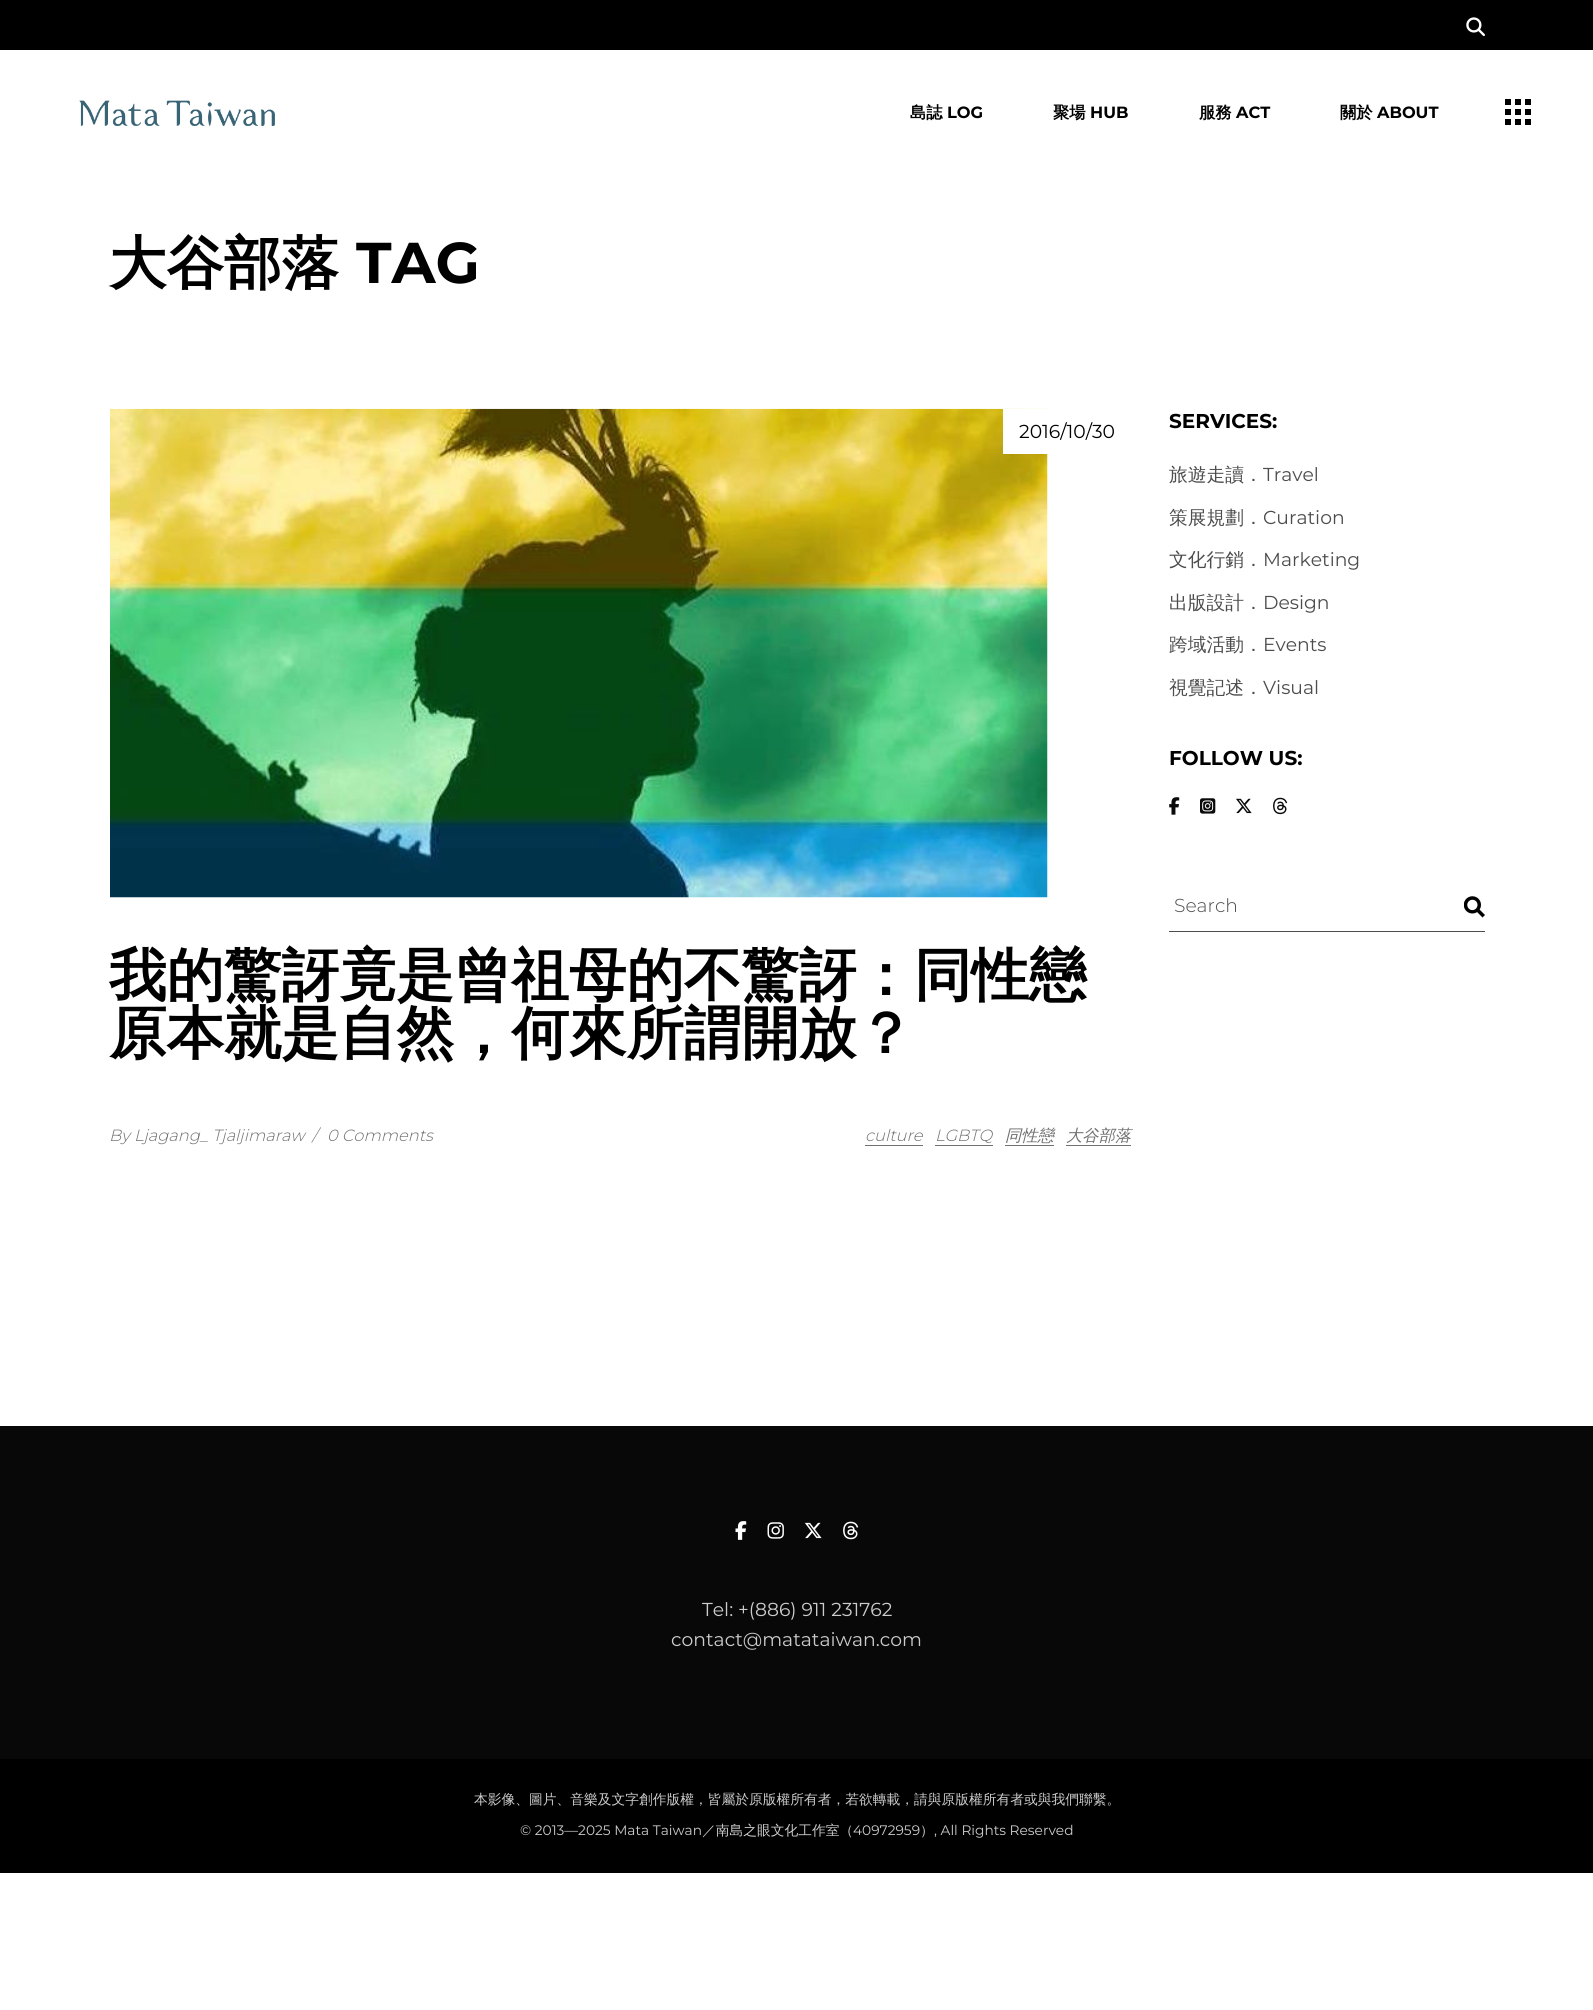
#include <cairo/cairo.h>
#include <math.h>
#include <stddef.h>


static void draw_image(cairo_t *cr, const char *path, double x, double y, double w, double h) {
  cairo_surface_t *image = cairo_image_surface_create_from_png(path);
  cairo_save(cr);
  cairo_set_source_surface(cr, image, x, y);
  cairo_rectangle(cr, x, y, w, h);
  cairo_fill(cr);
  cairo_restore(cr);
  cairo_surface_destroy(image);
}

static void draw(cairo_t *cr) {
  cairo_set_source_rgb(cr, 1, 1, 1);
  cairo_paint(cr);
  cairo_set_source_rgb(cr, 0, 0, 0);
  cairo_rectangle(cr, 0, 0, 1593, 50);
  cairo_fill(cr);
  draw_image(cr, "images/1.png", 1466, 17, 19, 20);
  draw_image(cr, "images/2.png", 79, 100, 196, 26);
  draw_image(cr, "images/3.png", 1505, 99, 26, 26);
  draw_image(cr, "images/4.png", 110, 408, 938, 490);
  cairo_set_source_rgb(cr, 1, 1, 1);
  cairo_rectangle(cr, 1003, 409, 45, 45);
  cairo_fill(cr);
  cairo_set_source_rgb(cr, 112 / 255.0, 112 / 255.0, 112 / 255.0);
  cairo_rectangle(cr, 865, 1145, 58, 1);
  cairo_fill(cr);
  cairo_rectangle(cr, 935, 1145, 58, 1);
  cairo_fill(cr);
  cairo_rectangle(cr, 1005, 1145, 49, 1);
  cairo_fill(cr);
  cairo_rectangle(cr, 1066, 1145, 65, 1);
  cairo_fill(cr);
  draw_image(cr, "images/5.png", 1169, 797, 11, 18);
  draw_image(cr, "images/6.png", 1200, 798, 16, 16);
  draw_image(cr, "images/7.png", 1236, 798, 16, 16);
  draw_image(cr, "images/8.png", 1273, 797, 15, 18);
  cairo_set_source_rgb(cr, 76 / 255.0, 76 / 255.0, 76 / 255.0);
  cairo_rectangle(cr, 1169, 931, 316, 1);
  cairo_fill(cr);
  draw_image(cr, "images/9.png", 1464, 896, 21, 22);
  cairo_set_source_rgb(cr, 8 / 255.0, 8 / 255.0, 8 / 255.0);
  cairo_rectangle(cr, 0, 1426, 1593, 333);
  cairo_fill(cr);
  draw_image(cr, "images/10.png", 735, 1521, 12, 19);
  draw_image(cr, "images/11.png", 767, 1522, 17, 17);
  draw_image(cr, "images/12.png", 804, 1522, 18, 17);
  draw_image(cr, "images/13.png", 843, 1521, 16, 19);
  cairo_set_source_rgb(cr, 0, 0, 0);
  cairo_rectangle(cr, 0, 1759, 1593, 114);
  cairo_fill(cr);
  cairo_select_font_face(cr, "WenQuanYi Zen Hei", CAIRO_FONT_SLANT_NORMAL, CAIRO_FONT_WEIGHT_BOLD);
  cairo_set_font_size(cr, 16.25);
  cairo_move_to(cr, 910, 118);
  cairo_show_text(cr, "島誌");
  cairo_select_font_face(cr, "Montserrat", CAIRO_FONT_SLANT_NORMAL, CAIRO_FONT_WEIGHT_BOLD);
  cairo_move_to(cr, 947, 118);
  cairo_show_text(cr, "LOG");
  cairo_select_font_face(cr, "WenQuanYi Zen Hei", CAIRO_FONT_SLANT_NORMAL, CAIRO_FONT_WEIGHT_BOLD);
  cairo_move_to(cr, 1053, 118);
  cairo_show_text(cr, "聚場");
  cairo_select_font_face(cr, "Montserrat", CAIRO_FONT_SLANT_NORMAL, CAIRO_FONT_WEIGHT_BOLD);
  cairo_move_to(cr, 1090, 118);
  cairo_show_text(cr, "HUB");
  cairo_select_font_face(cr, "WenQuanYi Zen Hei", CAIRO_FONT_SLANT_NORMAL, CAIRO_FONT_WEIGHT_BOLD);
  cairo_move_to(cr, 1199, 118);
  cairo_show_text(cr, "服務");
  cairo_select_font_face(cr, "Montserrat", CAIRO_FONT_SLANT_NORMAL, CAIRO_FONT_WEIGHT_BOLD);
  cairo_move_to(cr, 1236, 118);
  cairo_show_text(cr, "ACT");
  cairo_select_font_face(cr, "WenQuanYi Zen Hei", CAIRO_FONT_SLANT_NORMAL, CAIRO_FONT_WEIGHT_BOLD);
  cairo_move_to(cr, 1340, 118);
  cairo_show_text(cr, "關於");
  cairo_select_font_face(cr, "Montserrat", CAIRO_FONT_SLANT_NORMAL, CAIRO_FONT_WEIGHT_BOLD);
  cairo_move_to(cr, 1377, 118);
  cairo_show_text(cr, "ABOUT");
  cairo_select_font_face(cr, "WenQuanYi Zen Hei", CAIRO_FONT_SLANT_NORMAL, CAIRO_FONT_WEIGHT_BOLD);
  cairo_set_font_size(cr, 57.5);
  cairo_move_to(cr, 109, 283);
  cairo_show_text(cr, "大谷部落");
  cairo_select_font_face(cr, "Montserrat", CAIRO_FONT_SLANT_NORMAL, CAIRO_FONT_WEIGHT_BOLD);
  cairo_move_to(cr, 356, 283);
  cairo_show_text(cr, "TAG");
  cairo_select_font_face(cr, "Montserrat", CAIRO_FONT_SLANT_NORMAL, CAIRO_FONT_WEIGHT_NORMAL);
  cairo_set_font_size(cr, 18.75);
  cairo_move_to(cr, 1019, 438);
  cairo_show_text(cr, "2016/10/30");
  cairo_select_font_face(cr, "WenQuanYi Zen Hei", CAIRO_FONT_SLANT_NORMAL, CAIRO_FONT_WEIGHT_BOLD);
  cairo_set_font_size(cr, 57.5);
  cairo_move_to(cr, 109, 995);
  cairo_show_text(cr, "我的驚訝竟是曾祖母的不驚訝：同性戀");
  cairo_move_to(cr, 109, 1053);
  cairo_show_text(cr, "原本就是自然，何來所謂開放？");
  cairo_select_font_face(cr, "Montserrat Light", CAIRO_FONT_SLANT_ITALIC, CAIRO_FONT_WEIGHT_NORMAL);
  cairo_set_font_size(cr, 16.25);
  cairo_set_source_rgb(cr, 112 / 255.0, 112 / 255.0, 112 / 255.0);
  cairo_move_to(cr, 109, 1141);
  cairo_show_text(cr, "By Ljagang_ Tjaljimaraw");
  cairo_move_to(cr, 312, 1141);
  cairo_show_text(cr, "/");
  cairo_move_to(cr, 327, 1141);
  cairo_show_text(cr, "0 Comments");
  cairo_move_to(cr, 865, 1141);
  cairo_show_text(cr, "culture");
  cairo_move_to(cr, 935, 1141);
  cairo_show_text(cr, "LGBTQ");
  cairo_select_font_face(cr, "WenQuanYi Zen Hei Medium", CAIRO_FONT_SLANT_ITALIC, CAIRO_FONT_WEIGHT_NORMAL);
  cairo_move_to(cr, 1005, 1141);
  cairo_show_text(cr, "同性戀");
  cairo_move_to(cr, 1066, 1141);
  cairo_show_text(cr, "大谷部落");
  cairo_select_font_face(cr, "Montserrat", CAIRO_FONT_SLANT_NORMAL, CAIRO_FONT_WEIGHT_BOLD);
  cairo_set_font_size(cr, 20);
  cairo_set_source_rgb(cr, 0, 0, 0);
  cairo_move_to(cr, 1169, 428);
  cairo_show_text(cr, "SERVICES:");
  cairo_select_font_face(cr, "WenQuanYi Zen Hei Medium", CAIRO_FONT_SLANT_NORMAL, CAIRO_FONT_WEIGHT_NORMAL);
  cairo_set_font_size(cr, 18.75);
  cairo_set_source_rgb(cr, 76 / 255.0, 76 / 255.0, 76 / 255.0);
  cairo_move_to(cr, 1169, 481);
  cairo_show_text(cr, "旅遊走讀．");
  cairo_select_font_face(cr, "Montserrat", CAIRO_FONT_SLANT_NORMAL, CAIRO_FONT_WEIGHT_NORMAL);
  cairo_move_to(cr, 1263, 481);
  cairo_show_text(cr, "Travel");
  cairo_select_font_face(cr, "WenQuanYi Zen Hei Medium", CAIRO_FONT_SLANT_NORMAL, CAIRO_FONT_WEIGHT_NORMAL);
  cairo_move_to(cr, 1169, 524);
  cairo_show_text(cr, "策展規劃．");
  cairo_select_font_face(cr, "Montserrat", CAIRO_FONT_SLANT_NORMAL, CAIRO_FONT_WEIGHT_NORMAL);
  cairo_move_to(cr, 1263, 524);
  cairo_show_text(cr, "Curation");
  cairo_select_font_face(cr, "WenQuanYi Zen Hei Medium", CAIRO_FONT_SLANT_NORMAL, CAIRO_FONT_WEIGHT_NORMAL);
  cairo_move_to(cr, 1169, 566);
  cairo_show_text(cr, "文化行銷．");
  cairo_select_font_face(cr, "Montserrat", CAIRO_FONT_SLANT_NORMAL, CAIRO_FONT_WEIGHT_NORMAL);
  cairo_move_to(cr, 1263, 566);
  cairo_show_text(cr, "Marketing");
  cairo_select_font_face(cr, "WenQuanYi Zen Hei Medium", CAIRO_FONT_SLANT_NORMAL, CAIRO_FONT_WEIGHT_NORMAL);
  cairo_move_to(cr, 1169, 609);
  cairo_show_text(cr, "出版設計．");
  cairo_select_font_face(cr, "Montserrat", CAIRO_FONT_SLANT_NORMAL, CAIRO_FONT_WEIGHT_NORMAL);
  cairo_move_to(cr, 1263, 609);
  cairo_show_text(cr, "Design");
  cairo_select_font_face(cr, "WenQuanYi Zen Hei Medium", CAIRO_FONT_SLANT_NORMAL, CAIRO_FONT_WEIGHT_NORMAL);
  cairo_move_to(cr, 1169, 651);
  cairo_show_text(cr, "跨域活動．");
  cairo_select_font_face(cr, "Montserrat", CAIRO_FONT_SLANT_NORMAL, CAIRO_FONT_WEIGHT_NORMAL);
  cairo_move_to(cr, 1263, 651);
  cairo_show_text(cr, "Events");
  cairo_select_font_face(cr, "WenQuanYi Zen Hei Medium", CAIRO_FONT_SLANT_NORMAL, CAIRO_FONT_WEIGHT_NORMAL);
  cairo_move_to(cr, 1169, 694);
  cairo_show_text(cr, "視覺記述．");
  cairo_select_font_face(cr, "Montserrat", CAIRO_FONT_SLANT_NORMAL, CAIRO_FONT_WEIGHT_NORMAL);
  cairo_move_to(cr, 1263, 694);
  cairo_show_text(cr, "Visual");
  cairo_select_font_face(cr, "Montserrat", CAIRO_FONT_SLANT_NORMAL, CAIRO_FONT_WEIGHT_BOLD);
  cairo_set_font_size(cr, 20);
  cairo_set_source_rgb(cr, 0, 0, 0);
  cairo_move_to(cr, 1169, 765);
  cairo_show_text(cr, "FOLLOW US:");
  cairo_select_font_face(cr, "Montserrat Light", CAIRO_FONT_SLANT_NORMAL, CAIRO_FONT_WEIGHT_NORMAL);
  cairo_set_font_size(cr, 18.75);
  cairo_set_source_rgb(cr, 76 / 255.0, 76 / 255.0, 76 / 255.0);
  cairo_move_to(cr, 1174, 912);
  cairo_show_text(cr, "Search");
  cairo_select_font_face(cr, "Montserrat", CAIRO_FONT_SLANT_NORMAL, CAIRO_FONT_WEIGHT_NORMAL);
  cairo_set_source_rgb(cr, 204 / 255.0, 204 / 255.0, 204 / 255.0);
  cairo_move_to(cr, 702, 1616);
  cairo_show_text(cr, "Tel: +(886) 911 231762");
  cairo_move_to(cr, 671, 1646);
  cairo_show_text(cr, "contact@matataiwan.com");
  cairo_select_font_face(cr, "WenQuanYi Zen Hei Medium", CAIRO_FONT_SLANT_NORMAL, CAIRO_FONT_WEIGHT_NORMAL);
  cairo_set_font_size(cr, 13.75);
  cairo_move_to(cr, 474, 1804);
  cairo_show_text(cr, "本影像、圖片、音樂及文字創作版權，皆屬於原版權所有者，若欲轉載，請與原版權所有者或與我們聯繫。");
  cairo_select_font_face(cr, "Montserrat", CAIRO_FONT_SLANT_NORMAL, CAIRO_FONT_WEIGHT_NORMAL);
  cairo_move_to(cr, 520, 1835);
  cairo_show_text(cr, "© 2013—2025 Mata Taiwan");
  cairo_select_font_face(cr, "WenQuanYi Zen Hei Medium", CAIRO_FONT_SLANT_NORMAL, CAIRO_FONT_WEIGHT_NORMAL);
  cairo_move_to(cr, 702, 1835);
  cairo_show_text(cr, "／南島之眼文化工作室（");
  cairo_select_font_face(cr, "Montserrat", CAIRO_FONT_SLANT_NORMAL, CAIRO_FONT_WEIGHT_NORMAL);
  cairo_move_to(cr, 853, 1835);
  cairo_show_text(cr, "40972959");
  cairo_select_font_face(cr, "WenQuanYi Zen Hei Medium", CAIRO_FONT_SLANT_NORMAL, CAIRO_FONT_WEIGHT_NORMAL);
  cairo_move_to(cr, 920, 1835);
  cairo_show_text(cr, "）");
  cairo_select_font_face(cr, "Montserrat", CAIRO_FONT_SLANT_NORMAL, CAIRO_FONT_WEIGHT_NORMAL);
  cairo_move_to(cr, 934, 1835);
  cairo_show_text(cr, ", All Rights Reserved");
}

int main(void) {
  cairo_surface_t *surface = cairo_image_surface_create(CAIRO_FORMAT_RGB24, 1593, 2010);
  cairo_t *cr = cairo_create(surface);
  cairo_font_options_t *options = cairo_font_options_create();
  cairo_font_options_set_hint_metrics(options, CAIRO_HINT_METRICS_OFF);
  cairo_font_options_set_hint_style(options, CAIRO_HINT_STYLE_NONE);
  cairo_set_font_options(cr, options);
  cairo_set_miter_limit(cr, 4);
  draw(cr);
  cairo_surface_write_to_png(surface, "out.png");
  cairo_font_options_destroy(options);
  cairo_destroy(cr);
  cairo_surface_destroy(surface);
  return 0;
}
